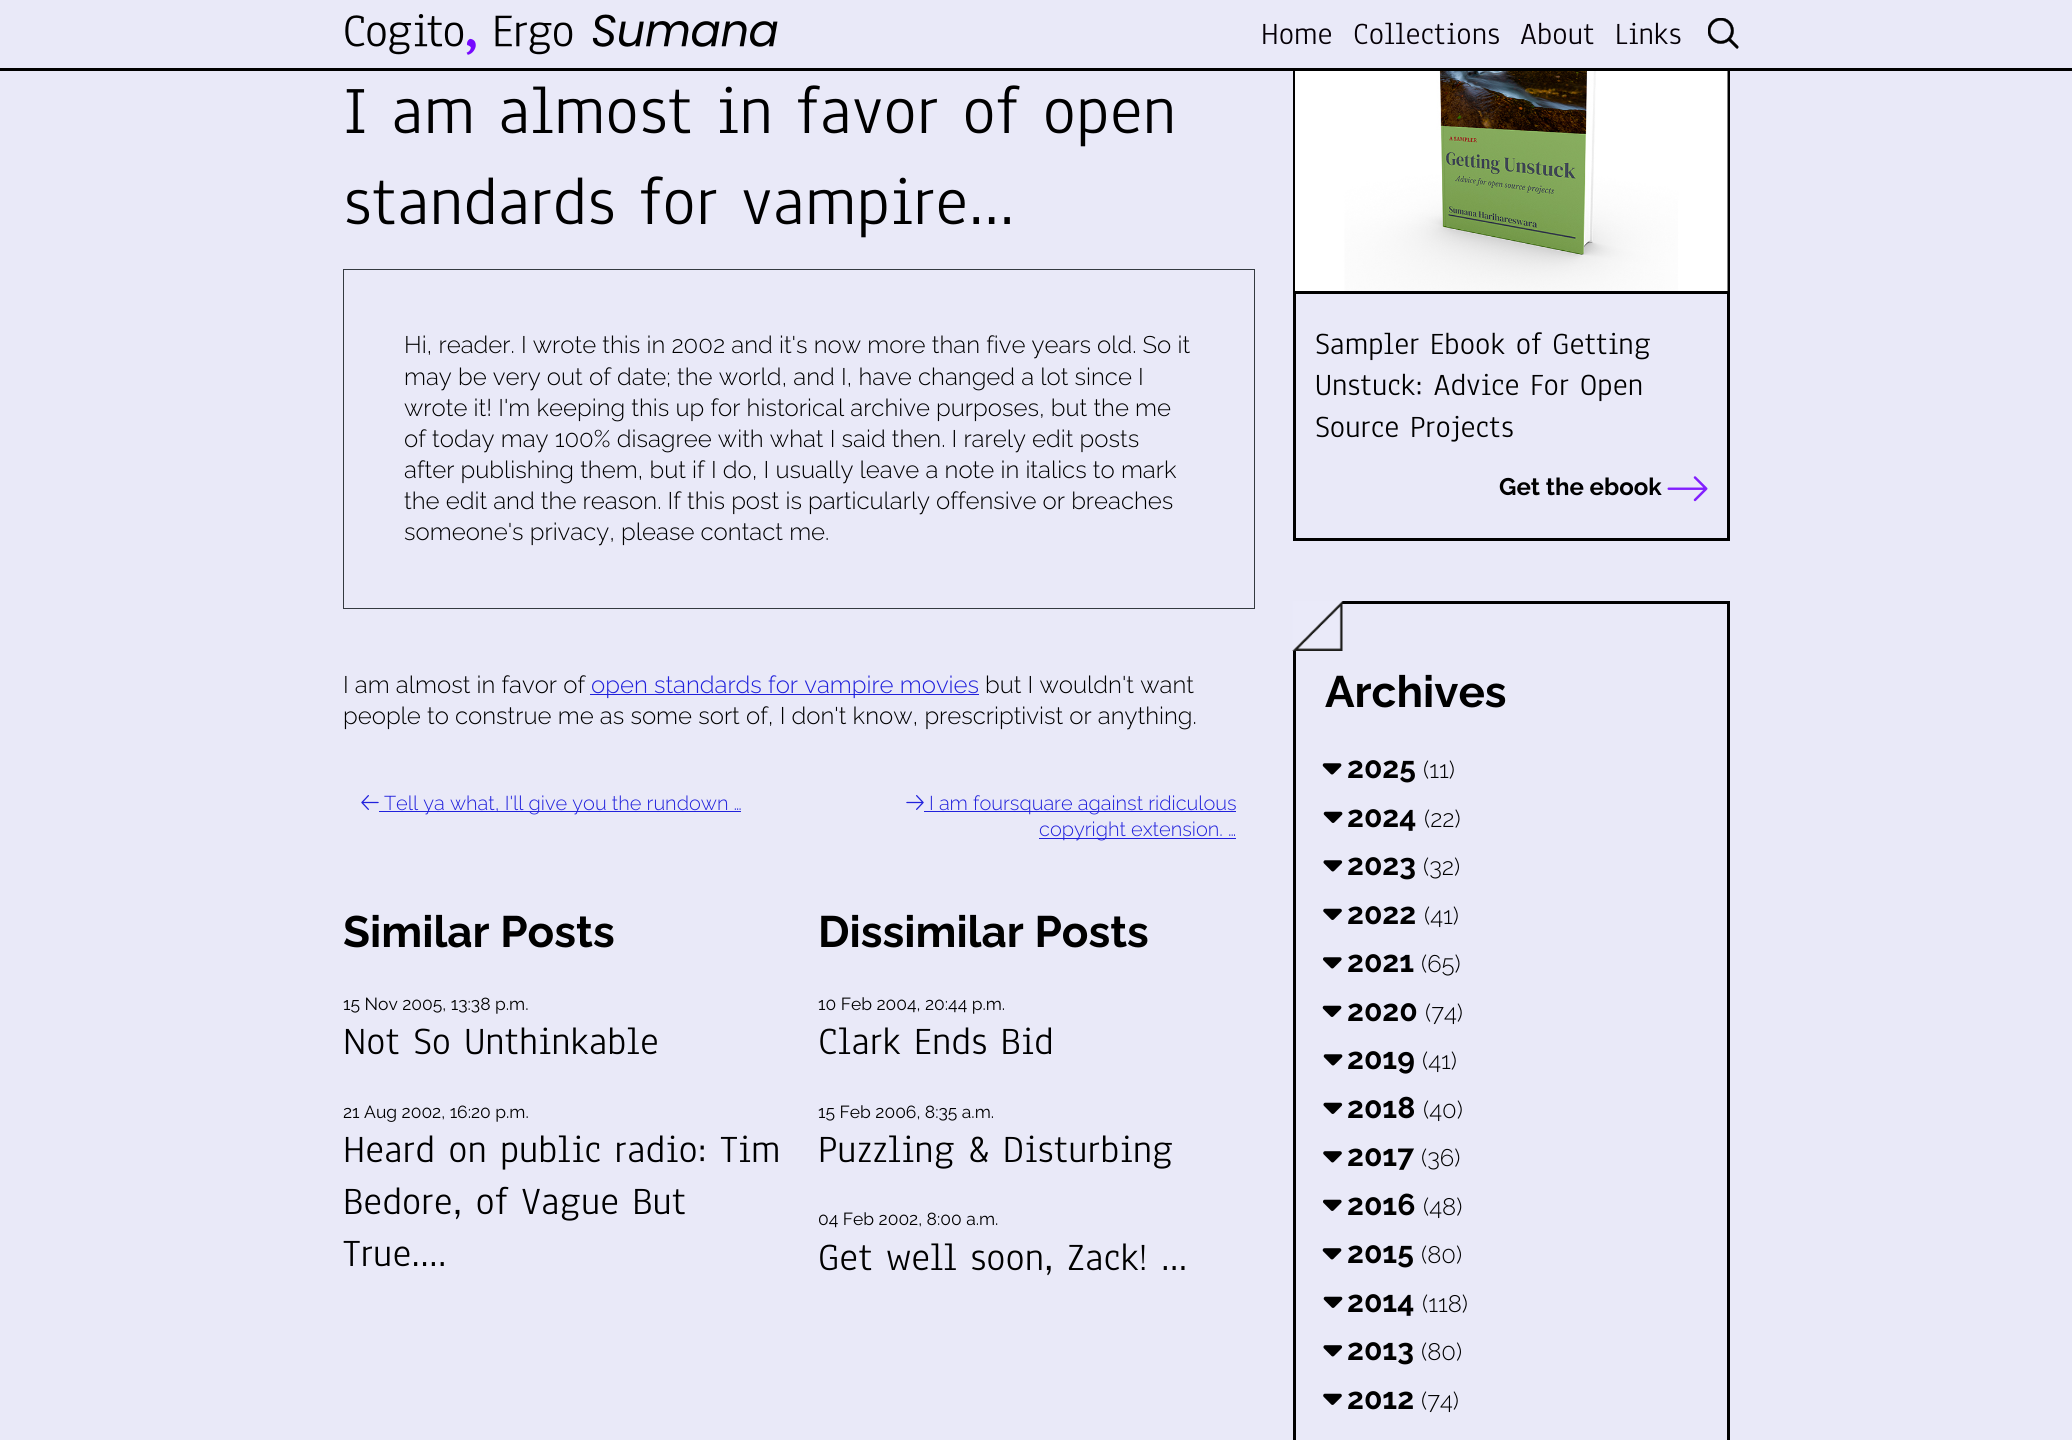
#include <cairo/cairo.h>
#include <math.h>
#include <stddef.h>


static void draw_image(cairo_t *cr, const char *path, double x, double y, double w, double h) {
  cairo_surface_t *image = cairo_image_surface_create_from_png(path);
  cairo_save(cr);
  cairo_set_source_surface(cr, image, x, y);
  cairo_rectangle(cr, x, y, w, h);
  cairo_fill(cr);
  cairo_restore(cr);
  cairo_surface_destroy(image);
}

static void draw(cairo_t *cr) {
  cairo_set_source_rgb(cr, 233 / 255.0, 233 / 255.0, 248 / 255.0);
  cairo_paint(cr);
  cairo_rectangle(cr, 1294.5, -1.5, 434, 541);
  cairo_set_source_rgb(cr, 0, 0, 0);
  cairo_set_line_width(cr, 3);
  cairo_stroke(cr);
  cairo_set_source_rgb(cr, 233 / 255.0, 233 / 255.0, 248 / 255.0);
  cairo_rectangle(cr, 1293, 0, 437, 68);
  cairo_fill(cr);
  cairo_set_source_rgb(cr, 0, 0, 0);
  cairo_rectangle(cr, 0, 68, 2072, 3);
  cairo_fill(cr);
  draw_image(cr, "images/1.png", 345, 14, 433, 41);
  draw_image(cr, "images/2.png", 1708, 18, 31, 31);
  cairo_rectangle(cr, 343.5, 269.5, 911, 339);
  cairo_set_source_rgb(cr, 52 / 255.0, 58 / 255.0, 64 / 255.0);
  cairo_set_line_width(cr, 1);
  cairo_stroke(cr);
  cairo_set_source_rgb(cr, 33 / 255.0, 33 / 255.0, 220 / 255.0);
  cairo_rectangle(cr, 590, 694, 389, 1);
  cairo_fill(cr);
  draw_image(cr, "images/3.png", 361, 795, 18, 15);
  cairo_rectangle(cr, 379, 811, 362, 1);
  cairo_fill(cr);
  draw_image(cr, "images/4.png", 906, 795, 18, 15);
  cairo_rectangle(cr, 924, 811, 312, 1);
  cairo_fill(cr);
  cairo_rectangle(cr, 1039, 838, 197, 1);
  cairo_fill(cr);
  draw_image(cr, "images/5.png", 1295, 71, 433, 220);
  cairo_set_source_rgb(cr, 0, 0, 0);
  cairo_rectangle(cr, 1295, 291, 433, 3);
  cairo_fill(cr);
  draw_image(cr, "images/6.png", 1667, 476, 41, 26);
  cairo_rectangle(cr, 1294.5, 602.5, 434, 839);
  cairo_set_line_width(cr, 3);
  cairo_stroke(cr);
  draw_image(cr, "images/7.png", 1292, 601, 51, 50);
  draw_image(cr, "images/8.png", 1322, 763, 20, 12);
  draw_image(cr, "images/9.png", 1323, 811, 20, 12);
  draw_image(cr, "images/10.png", 1323, 860, 20, 12);
  draw_image(cr, "images/11.png", 1323, 908, 19, 12);
  draw_image(cr, "images/12.png", 1323, 957, 19, 12);
  draw_image(cr, "images/13.png", 1322, 1005, 20, 12);
  draw_image(cr, "images/14.png", 1323, 1054, 20, 12);
  draw_image(cr, "images/15.png", 1323, 1102, 20, 12);
  draw_image(cr, "images/16.png", 1323, 1151, 19, 12);
  draw_image(cr, "images/17.png", 1323, 1199, 19, 12);
  draw_image(cr, "images/18.png", 1322, 1248, 20, 12);
  draw_image(cr, "images/19.png", 1323, 1296, 20, 12);
  draw_image(cr, "images/20.png", 1323, 1345, 20, 12);
  draw_image(cr, "images/21.png", 1323, 1393, 19, 12);
  cairo_select_font_face(cr, "Anaheim", CAIRO_FONT_SLANT_NORMAL, CAIRO_FONT_WEIGHT_NORMAL);
  cairo_set_font_size(cr, 32);
  cairo_set_source_rgb(cr, 5 / 255.0, 0, 6 / 255.0);
  cairo_move_to(cr, 1261, 44);
  cairo_show_text(cr, "Home");
  cairo_move_to(cr, 1353, 44);
  cairo_show_text(cr, "Collections");
  cairo_move_to(cr, 1520, 44);
  cairo_show_text(cr, "About");
  cairo_move_to(cr, 1615, 44);
  cairo_show_text(cr, "Links");
  cairo_set_font_size(cr, 70);
  cairo_set_source_rgb(cr, 0, 0, 0);
  cairo_move_to(cr, 343, 133);
  cairo_show_text(cr, "I am almost in favor of open");
  cairo_move_to(cr, 343, 224);
  cairo_show_text(cr, "standards for vampire…");
  cairo_select_font_face(cr, "Raleway Light", CAIRO_FONT_SLANT_NORMAL, CAIRO_FONT_WEIGHT_NORMAL);
  cairo_set_font_size(cr, 24);
  cairo_move_to(cr, 404, 353);
  cairo_show_text(cr, "Hi, reader. I wrote this in 2002 and it's now more than five years");
  cairo_move_to(cr, 1097, 353);
  cairo_show_text(cr, "old. So it");
  cairo_move_to(cr, 404, 385);
  cairo_show_text(cr, "may be very out of date; the world, and I, have changed a lot since I");
  cairo_move_to(cr, 404, 416);
  cairo_show_text(cr, "wrote it! I'm keeping this up for historical archive purposes, but the me");
  cairo_move_to(cr, 404, 447);
  cairo_show_text(cr, "of today may 100% disagree with what I said then. I rarely edit posts");
  cairo_move_to(cr, 404, 478);
  cairo_show_text(cr, "after publishing them, but if I do, I usually leave a note in italics to mark");
  cairo_move_to(cr, 404, 509);
  cairo_show_text(cr, "the edit and the reason. If this post is particularly");
  cairo_move_to(cr, 936, 509);
  cairo_show_text(cr, "offensive or breaches");
  cairo_move_to(cr, 404, 540);
  cairo_show_text(cr, "someone's privacy, please contact me.");
  cairo_move_to(cr, 343, 693);
  cairo_show_text(cr, "I am almost in favor of");
  cairo_set_source_rgb(cr, 33 / 255.0, 33 / 255.0, 220 / 255.0);
  cairo_move_to(cr, 591, 693);
  cairo_show_text(cr, "open standards for vampire movies");
  cairo_set_source_rgb(cr, 0, 0, 0);
  cairo_move_to(cr, 985, 693);
  cairo_show_text(cr, "but I wouldn't want");
  cairo_move_to(cr, 343, 724);
  cairo_show_text(cr, "people to construe me as some sort of, I don't know, prescriptivist or anything.");
  cairo_set_font_size(cr, 20);
  cairo_set_source_rgb(cr, 33 / 255.0, 33 / 255.0, 220 / 255.0);
  cairo_move_to(cr, 384, 810);
  cairo_show_text(cr, "Tell ya what, I'll give you the rundown …");
  cairo_move_to(cr, 929, 810);
  cairo_show_text(cr, "I am foursquare against ridiculous");
  cairo_move_to(cr, 1039, 836);
  cairo_show_text(cr, "copyright extension. …");
  cairo_select_font_face(cr, "Raleway", CAIRO_FONT_SLANT_NORMAL, CAIRO_FONT_WEIGHT_BOLD);
  cairo_set_font_size(cr, 44);
  cairo_set_source_rgb(cr, 0, 0, 0);
  cairo_move_to(cr, 343, 947);
  cairo_show_text(cr, "Similar Posts");
  cairo_select_font_face(cr, "Raleway", CAIRO_FONT_SLANT_NORMAL, CAIRO_FONT_WEIGHT_NORMAL);
  cairo_set_font_size(cr, 17.5);
  cairo_move_to(cr, 343, 1010);
  cairo_show_text(cr, "15 Nov 2005, 13:38 p.m.");
  cairo_select_font_face(cr, "Anaheim", CAIRO_FONT_SLANT_NORMAL, CAIRO_FONT_WEIGHT_NORMAL);
  cairo_set_font_size(cr, 40);
  cairo_move_to(cr, 343, 1054);
  cairo_show_text(cr, "Not So Unthinkable");
  cairo_select_font_face(cr, "Raleway", CAIRO_FONT_SLANT_NORMAL, CAIRO_FONT_WEIGHT_NORMAL);
  cairo_set_font_size(cr, 17.5);
  cairo_move_to(cr, 343, 1118);
  cairo_show_text(cr, "21 Aug 2002, 16:20 p.m.");
  cairo_select_font_face(cr, "Anaheim", CAIRO_FONT_SLANT_NORMAL, CAIRO_FONT_WEIGHT_NORMAL);
  cairo_set_font_size(cr, 40);
  cairo_move_to(cr, 343, 1162);
  cairo_show_text(cr, "Heard on public radio: Tim");
  cairo_move_to(cr, 343, 1214);
  cairo_show_text(cr, "Bedore, of Vague But");
  cairo_move_to(cr, 343, 1266);
  cairo_show_text(cr, "True.…");
  cairo_select_font_face(cr, "Raleway", CAIRO_FONT_SLANT_NORMAL, CAIRO_FONT_WEIGHT_BOLD);
  cairo_set_font_size(cr, 44);
  cairo_move_to(cr, 818, 947);
  cairo_show_text(cr, "Dissimilar Posts");
  cairo_select_font_face(cr, "Raleway", CAIRO_FONT_SLANT_NORMAL, CAIRO_FONT_WEIGHT_NORMAL);
  cairo_set_font_size(cr, 17.5);
  cairo_move_to(cr, 818, 1010);
  cairo_show_text(cr, "10 Feb 2004, 20:44 p.m.");
  cairo_select_font_face(cr, "Anaheim", CAIRO_FONT_SLANT_NORMAL, CAIRO_FONT_WEIGHT_NORMAL);
  cairo_set_font_size(cr, 40);
  cairo_move_to(cr, 818, 1054);
  cairo_show_text(cr, "Clark Ends Bid");
  cairo_select_font_face(cr, "Raleway", CAIRO_FONT_SLANT_NORMAL, CAIRO_FONT_WEIGHT_NORMAL);
  cairo_set_font_size(cr, 17.5);
  cairo_move_to(cr, 818, 1118);
  cairo_show_text(cr, "15 Feb 2006, 8:35 a.m.");
  cairo_select_font_face(cr, "Anaheim", CAIRO_FONT_SLANT_NORMAL, CAIRO_FONT_WEIGHT_NORMAL);
  cairo_set_font_size(cr, 40);
  cairo_move_to(cr, 818, 1162);
  cairo_show_text(cr, "Puzzling & Disturbing");
  cairo_select_font_face(cr, "Raleway", CAIRO_FONT_SLANT_NORMAL, CAIRO_FONT_WEIGHT_NORMAL);
  cairo_set_font_size(cr, 17.5);
  cairo_move_to(cr, 818, 1225);
  cairo_show_text(cr, "04 Feb 2002, 8:00 a.m.");
  cairo_select_font_face(cr, "Anaheim", CAIRO_FONT_SLANT_NORMAL, CAIRO_FONT_WEIGHT_NORMAL);
  cairo_set_font_size(cr, 40);
  cairo_move_to(cr, 818, 1270);
  cairo_show_text(cr, "Get well soon, Zack! …");
  cairo_set_font_size(cr, 32);
  cairo_move_to(cr, 1315, 354);
  cairo_show_text(cr, "Sampler Ebook of Getting");
  cairo_move_to(cr, 1315, 395);
  cairo_show_text(cr, "Unstuck: Advice For Open");
  cairo_move_to(cr, 1315, 437);
  cairo_show_text(cr, "Source Projects");
  cairo_select_font_face(cr, "Raleway", CAIRO_FONT_SLANT_NORMAL, CAIRO_FONT_WEIGHT_BOLD);
  cairo_set_font_size(cr, 24);
  cairo_move_to(cr, 1499, 495);
  cairo_show_text(cr, "Get the ebook");
  cairo_set_font_size(cr, 44);
  cairo_move_to(cr, 1325, 707);
  cairo_show_text(cr, "Archives");
  cairo_set_font_size(cr, 30);
  cairo_move_to(cr, 1347, 778);
  cairo_show_text(cr, "2025");
  cairo_select_font_face(cr, "Raleway Light", CAIRO_FONT_SLANT_NORMAL, CAIRO_FONT_WEIGHT_NORMAL);
  cairo_set_font_size(cr, 24);
  cairo_move_to(cr, 1423, 778);
  cairo_show_text(cr, "(11)");
  cairo_select_font_face(cr, "Raleway", CAIRO_FONT_SLANT_NORMAL, CAIRO_FONT_WEIGHT_BOLD);
  cairo_set_font_size(cr, 30);
  cairo_move_to(cr, 1347, 827);
  cairo_show_text(cr, "2024");
  cairo_select_font_face(cr, "Raleway Light", CAIRO_FONT_SLANT_NORMAL, CAIRO_FONT_WEIGHT_NORMAL);
  cairo_set_font_size(cr, 24);
  cairo_move_to(cr, 1424, 827);
  cairo_show_text(cr, "(22)");
  cairo_select_font_face(cr, "Raleway", CAIRO_FONT_SLANT_NORMAL, CAIRO_FONT_WEIGHT_BOLD);
  cairo_set_font_size(cr, 30);
  cairo_move_to(cr, 1347, 875);
  cairo_show_text(cr, "2023");
  cairo_select_font_face(cr, "Raleway Light", CAIRO_FONT_SLANT_NORMAL, CAIRO_FONT_WEIGHT_NORMAL);
  cairo_set_font_size(cr, 24);
  cairo_move_to(cr, 1423, 875);
  cairo_show_text(cr, "(32)");
  cairo_select_font_face(cr, "Raleway", CAIRO_FONT_SLANT_NORMAL, CAIRO_FONT_WEIGHT_BOLD);
  cairo_set_font_size(cr, 30);
  cairo_move_to(cr, 1347, 924);
  cairo_show_text(cr, "2022");
  cairo_select_font_face(cr, "Raleway Light", CAIRO_FONT_SLANT_NORMAL, CAIRO_FONT_WEIGHT_NORMAL);
  cairo_set_font_size(cr, 24);
  cairo_move_to(cr, 1424, 924);
  cairo_show_text(cr, "(41)");
  cairo_select_font_face(cr, "Raleway", CAIRO_FONT_SLANT_NORMAL, CAIRO_FONT_WEIGHT_BOLD);
  cairo_set_font_size(cr, 30);
  cairo_move_to(cr, 1347, 972);
  cairo_show_text(cr, "2021");
  cairo_select_font_face(cr, "Raleway Light", CAIRO_FONT_SLANT_NORMAL, CAIRO_FONT_WEIGHT_NORMAL);
  cairo_set_font_size(cr, 24);
  cairo_move_to(cr, 1421, 972);
  cairo_show_text(cr, "(65)");
  cairo_select_font_face(cr, "Raleway", CAIRO_FONT_SLANT_NORMAL, CAIRO_FONT_WEIGHT_BOLD);
  cairo_set_font_size(cr, 30);
  cairo_move_to(cr, 1347, 1021);
  cairo_show_text(cr, "2020");
  cairo_select_font_face(cr, "Raleway Light", CAIRO_FONT_SLANT_NORMAL, CAIRO_FONT_WEIGHT_NORMAL);
  cairo_set_font_size(cr, 24);
  cairo_move_to(cr, 1425, 1021);
  cairo_show_text(cr, "(74)");
  cairo_select_font_face(cr, "Raleway", CAIRO_FONT_SLANT_NORMAL, CAIRO_FONT_WEIGHT_BOLD);
  cairo_set_font_size(cr, 30);
  cairo_move_to(cr, 1347, 1069);
  cairo_show_text(cr, "2019");
  cairo_select_font_face(cr, "Raleway Light", CAIRO_FONT_SLANT_NORMAL, CAIRO_FONT_WEIGHT_NORMAL);
  cairo_set_font_size(cr, 24);
  cairo_move_to(cr, 1422, 1069);
  cairo_show_text(cr, "(41)");
  cairo_select_font_face(cr, "Raleway", CAIRO_FONT_SLANT_NORMAL, CAIRO_FONT_WEIGHT_BOLD);
  cairo_set_font_size(cr, 30);
  cairo_move_to(cr, 1347, 1118);
  cairo_show_text(cr, "2018");
  cairo_select_font_face(cr, "Raleway Light", CAIRO_FONT_SLANT_NORMAL, CAIRO_FONT_WEIGHT_NORMAL);
  cairo_set_font_size(cr, 24);
  cairo_move_to(cr, 1423, 1118);
  cairo_show_text(cr, "(40)");
  cairo_select_font_face(cr, "Raleway", CAIRO_FONT_SLANT_NORMAL, CAIRO_FONT_WEIGHT_BOLD);
  cairo_set_font_size(cr, 30);
  cairo_move_to(cr, 1347, 1166);
  cairo_show_text(cr, "2017");
  cairo_select_font_face(cr, "Raleway Light", CAIRO_FONT_SLANT_NORMAL, CAIRO_FONT_WEIGHT_NORMAL);
  cairo_set_font_size(cr, 24);
  cairo_move_to(cr, 1421, 1166);
  cairo_show_text(cr, "(36)");
  cairo_select_font_face(cr, "Raleway", CAIRO_FONT_SLANT_NORMAL, CAIRO_FONT_WEIGHT_BOLD);
  cairo_set_font_size(cr, 30);
  cairo_move_to(cr, 1347, 1215);
  cairo_show_text(cr, "2016");
  cairo_select_font_face(cr, "Raleway Light", CAIRO_FONT_SLANT_NORMAL, CAIRO_FONT_WEIGHT_NORMAL);
  cairo_set_font_size(cr, 24);
  cairo_move_to(cr, 1423, 1215);
  cairo_show_text(cr, "(48)");
  cairo_select_font_face(cr, "Raleway", CAIRO_FONT_SLANT_NORMAL, CAIRO_FONT_WEIGHT_BOLD);
  cairo_set_font_size(cr, 30);
  cairo_move_to(cr, 1347, 1263);
  cairo_show_text(cr, "2015");
  cairo_select_font_face(cr, "Raleway Light", CAIRO_FONT_SLANT_NORMAL, CAIRO_FONT_WEIGHT_NORMAL);
  cairo_set_font_size(cr, 24);
  cairo_move_to(cr, 1421, 1263);
  cairo_show_text(cr, "(80)");
  cairo_select_font_face(cr, "Raleway", CAIRO_FONT_SLANT_NORMAL, CAIRO_FONT_WEIGHT_BOLD);
  cairo_set_font_size(cr, 30);
  cairo_move_to(cr, 1347, 1312);
  cairo_show_text(cr, "2014");
  cairo_select_font_face(cr, "Raleway Light", CAIRO_FONT_SLANT_NORMAL, CAIRO_FONT_WEIGHT_NORMAL);
  cairo_set_font_size(cr, 24);
  cairo_move_to(cr, 1422, 1312);
  cairo_show_text(cr, "(118)");
  cairo_select_font_face(cr, "Raleway", CAIRO_FONT_SLANT_NORMAL, CAIRO_FONT_WEIGHT_BOLD);
  cairo_set_font_size(cr, 30);
  cairo_move_to(cr, 1347, 1360);
  cairo_show_text(cr, "2013");
  cairo_select_font_face(cr, "Raleway Light", CAIRO_FONT_SLANT_NORMAL, CAIRO_FONT_WEIGHT_NORMAL);
  cairo_set_font_size(cr, 24);
  cairo_move_to(cr, 1421, 1360);
  cairo_show_text(cr, "(80)");
  cairo_select_font_face(cr, "Raleway", CAIRO_FONT_SLANT_NORMAL, CAIRO_FONT_WEIGHT_BOLD);
  cairo_set_font_size(cr, 30);
  cairo_move_to(cr, 1347, 1409);
  cairo_show_text(cr, "2012");
  cairo_select_font_face(cr, "Raleway Light", CAIRO_FONT_SLANT_NORMAL, CAIRO_FONT_WEIGHT_NORMAL);
  cairo_set_font_size(cr, 24);
  cairo_move_to(cr, 1421, 1409);
  cairo_show_text(cr, "(74)");
}

int main(void) {
  cairo_surface_t *surface = cairo_image_surface_create(CAIRO_FORMAT_RGB24, 2072, 1440);
  cairo_t *cr = cairo_create(surface);
  cairo_font_options_t *options = cairo_font_options_create();
  cairo_font_options_set_hint_metrics(options, CAIRO_HINT_METRICS_OFF);
  cairo_font_options_set_hint_style(options, CAIRO_HINT_STYLE_NONE);
  cairo_set_font_options(cr, options);
  cairo_set_miter_limit(cr, 4);
  draw(cr);
  cairo_surface_write_to_png(surface, "out.png");
  cairo_font_options_destroy(options);
  cairo_destroy(cr);
  cairo_surface_destroy(surface);
  return 0;
}
